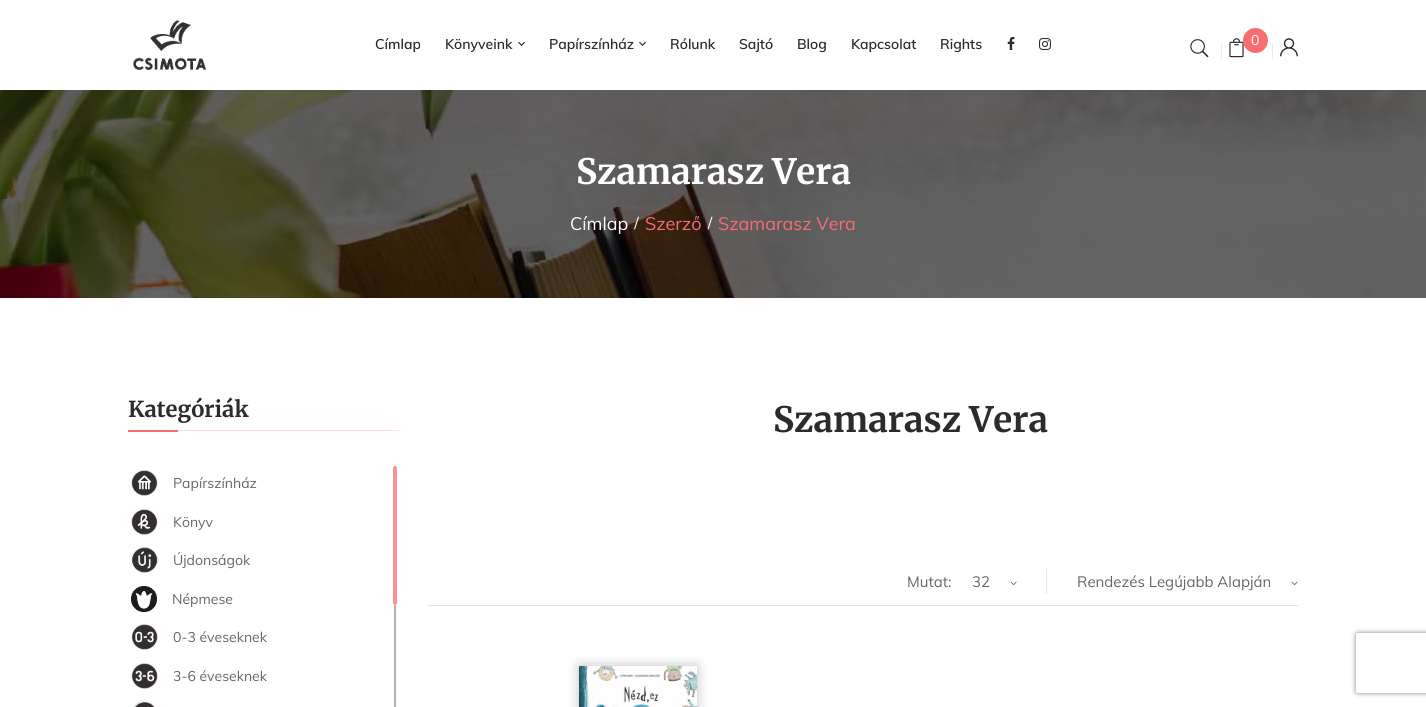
#include <cairo/cairo.h>
#include <math.h>
#include <stddef.h>


static void rounded_rect(cairo_t *cr, double x, double y, double w, double h, double r) {
  cairo_new_sub_path(cr);
  cairo_arc(cr, x + w - r, y + h - r, r, 0, M_PI / 2);
  cairo_arc(cr, x + r, y + h - r, r, M_PI / 2, M_PI);
  cairo_arc(cr, x + r, y + r, r, M_PI, 1.5 * M_PI);
  cairo_arc(cr, x + w - r, y + r, r, 1.5 * M_PI, 2 * M_PI);
  cairo_close_path(cr);
}

static void draw_shadow(cairo_t *cr, double x, double y, double w, double h, double r, double blur, double alpha) {
  cairo_push_group_with_content(cr, CAIRO_CONTENT_ALPHA);
  cairo_set_operator(cr, CAIRO_OPERATOR_SOURCE);
  for (int i = 15; i >= -15 && fmin(w, h) + blur * i / 3 > 0; i -= 2) {
    double e = blur * i / 6;
    cairo_set_source_rgba(cr, 0, 0, 0, alpha * erfc((i - 1) / 8.5) / 2);
    rounded_rect(cr, x - e, y - e, w + 2 * e, h + 2 * e, fmax(0, fmin(r + e + blur * .6, fmin(w, h) / 2 + e)));
    cairo_fill(cr);
  }
  cairo_pattern_t *soft = cairo_pop_group(cr);
  cairo_mask(cr, soft);
  cairo_pattern_destroy(soft);
}

static void draw_image(cairo_t *cr, const char *path, double x, double y, double w, double h) {
  cairo_surface_t *image = cairo_image_surface_create_from_png(path);
  cairo_save(cr);
  cairo_set_source_surface(cr, image, x, y);
  cairo_rectangle(cr, x, y, w, h);
  cairo_fill(cr);
  cairo_restore(cr);
  cairo_surface_destroy(image);
}

static void draw(cairo_t *cr) {
  cairo_set_source_rgb(cr, 1, 1, 1);
  cairo_paint(cr);
  draw_image(cr, "images/1.png", 133, 20, 73, 50);
  draw_image(cr, "images/2.png", 518, 41, 7, 5);
  draw_image(cr, "images/2.png", 639, 41, 7, 5);
  draw_image(cr, "images/3.png", 1007, 37, 8, 13);
  draw_image(cr, "images/4.png", 1039, 38, 12, 12);
  draw_image(cr, "images/5.png", 1190, 39, 19, 19);
  draw_image(cr, "images/6.png", 1229, 38, 15, 20);
  cairo_set_source_rgb(cr, 248 / 255.0, 109 / 255.0, 114 / 255.0);
  cairo_arc(cr, 1255.5, 40.5, 12.5, 0, 2 * M_PI);
  cairo_fill(cr);
  cairo_set_source_rgb(cr, 234 / 255.0, 234 / 255.0, 234 / 255.0);
  cairo_rectangle(cr, 1221, 43, 1, 16);
  cairo_fill(cr);
  cairo_rectangle(cr, 1272, 43, 1, 16);
  cairo_fill(cr);
  draw_image(cr, "images/7.png", 1280, 38, 18, 19);
  draw_image(cr, "images/8.png", 0, 90, 1426, 208);
  cairo_set_source_rgb(cr, 1, 1, 1);
  cairo_new_path(cr);
  cairo_move_to(cr, 638, 216.5);
  cairo_line_to(cr, 639, 217);
  cairo_line_to(cr, 635, 229.5);
  cairo_line_to(cr, 634, 229);
  cairo_close_path(cr);
  cairo_fill(cr);
  cairo_new_path(cr);
  cairo_move_to(cr, 711.5, 216.5);
  cairo_line_to(cr, 712.5, 217);
  cairo_line_to(cr, 708.5, 229.5);
  cairo_line_to(cr, 707.5, 229);
  cairo_close_path(cr);
  cairo_fill(cr);
  cairo_set_source_rgb(cr, 253 / 255.0, 219 / 255.0, 220 / 255.0);
  cairo_rectangle(cr, 178, 430, 220, 1);
  cairo_fill(cr);
  cairo_set_source_rgb(cr, 248 / 255.0, 109 / 255.0, 114 / 255.0);
  cairo_rectangle(cr, 128, 430, 50, 2);
  cairo_fill(cr);
  draw_image(cr, "images/9.png", 131, 470, 27, 26);
  draw_image(cr, "images/10.png", 131, 509, 27, 26);
  draw_image(cr, "images/11.png", 131, 547, 27, 26);
  draw_image(cr, "images/12.png", 131, 586, 26, 26);
  draw_image(cr, "images/13.png", 131, 624, 27, 26);
  draw_image(cr, "images/14.png", 131, 663, 27, 26);
  draw_image(cr, "images/15.png", 133, 701, 22, 6);
  cairo_set_source_rgb(cr, 250 / 255.0, 146 / 255.0, 149 / 255.0);
  rounded_rect(cr, 393, 466, 4, 139, 2);
  cairo_fill(cr);
  cairo_set_source_rgb(cr, 179 / 255.0, 179 / 255.0, 179 / 255.0);
  rounded_rect(cr, 394, 605, 2, 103, 1);
  cairo_fill(cr);
  cairo_set_source_rgb(cr, 227 / 255.0, 227 / 255.0, 227 / 255.0);
  cairo_rectangle(cr, 428, 605, 870, 1);
  cairo_fill(cr);
  draw_image(cr, "images/16.png", 1010, 581, 7, 5);
  cairo_rectangle(cr, 1046, 570, 1, 24);
  cairo_fill(cr);
  draw_image(cr, "images/16.png", 1291, 581, 7, 5);
  cairo_set_source_rgb(cr, 43 / 255.0, 43 / 255.0, 43 / 255.0);
  draw_shadow(cr, 579, 666, 118, 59, 0, 6, 0.3);
  draw_image(cr, "images/17.png", 579, 666, 118, 41);
  cairo_save(cr);
  cairo_set_fill_rule(cr, CAIRO_FILL_RULE_EVEN_ODD);
  cairo_new_path(cr);
  cairo_move_to(cr, 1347, 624);
  cairo_line_to(cr, 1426, 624);
  cairo_line_to(cr, 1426, 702);
  cairo_line_to(cr, 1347, 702);
  cairo_close_path(cr);
  cairo_move_to(cr, 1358, 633);
  cairo_line_to(cr, 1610, 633);
  cairo_curve_to(cr, 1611, 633, 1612, 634, 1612, 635);
  cairo_line_to(cr, 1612, 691);
  cairo_curve_to(cr, 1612, 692, 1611, 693, 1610, 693);
  cairo_line_to(cr, 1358, 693);
  cairo_curve_to(cr, 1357, 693, 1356, 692, 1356, 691);
  cairo_line_to(cr, 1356, 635);
  cairo_curve_to(cr, 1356, 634, 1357, 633, 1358, 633);
  cairo_close_path(cr);
  cairo_clip(cr);
  cairo_set_source_rgb(cr, 128 / 255.0, 128 / 255.0, 128 / 255.0);
  draw_shadow(cr, 1356, 633, 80, 60, 2, 2.5, 1);
  cairo_restore(cr);
  cairo_select_font_face(cr, "Muli SemiBold", CAIRO_FONT_SLANT_NORMAL, CAIRO_FONT_WEIGHT_NORMAL);
  cairo_set_font_size(cr, 14);
  cairo_set_source_rgb(cr, 43 / 255.0, 43 / 255.0, 43 / 255.0);
  cairo_move_to(cr, 375, 49);
  cairo_show_text(cr, "Címlap");
  cairo_move_to(cr, 445, 49);
  cairo_show_text(cr, "Könyveink");
  cairo_move_to(cr, 549, 49);
  cairo_show_text(cr, "Papírszínház");
  cairo_move_to(cr, 670, 49);
  cairo_show_text(cr, "Rólunk");
  cairo_move_to(cr, 739, 49);
  cairo_show_text(cr, "Sajtó");
  cairo_move_to(cr, 797, 49);
  cairo_show_text(cr, "Blog");
  cairo_move_to(cr, 851, 49);
  cairo_show_text(cr, "Kapcsolat");
  cairo_move_to(cr, 940, 49);
  cairo_show_text(cr, "Rights");
  cairo_select_font_face(cr, "Muli", CAIRO_FONT_SLANT_NORMAL, CAIRO_FONT_WEIGHT_NORMAL);
  cairo_set_source_rgb(cr, 1, 1, 1);
  cairo_move_to(cr, 1251, 45);
  cairo_show_text(cr, "0");
  cairo_select_font_face(cr, "Merriweather", CAIRO_FONT_SLANT_NORMAL, CAIRO_FONT_WEIGHT_BOLD);
  cairo_set_font_size(cr, 35);
  cairo_move_to(cr, 576, 184);
  cairo_show_text(cr, "Szamarasz Vera");
  cairo_select_font_face(cr, "Muli", CAIRO_FONT_SLANT_NORMAL, CAIRO_FONT_WEIGHT_NORMAL);
  cairo_set_font_size(cr, 18);
  cairo_move_to(cr, 570, 230);
  cairo_show_text(cr, "Címlap");
  cairo_set_source_rgb(cr, 248 / 255.0, 109 / 255.0, 114 / 255.0);
  cairo_move_to(cr, 645, 230);
  cairo_show_text(cr, "Szerző");
  cairo_move_to(cr, 718, 230);
  cairo_show_text(cr, "Szamarasz Vera");
  cairo_select_font_face(cr, "Merriweather", CAIRO_FONT_SLANT_NORMAL, CAIRO_FONT_WEIGHT_BOLD);
  cairo_set_font_size(cr, 22);
  cairo_set_source_rgb(cr, 43 / 255.0, 43 / 255.0, 43 / 255.0);
  cairo_move_to(cr, 128, 417);
  cairo_show_text(cr, "Kategóriák");
  cairo_select_font_face(cr, "Muli", CAIRO_FONT_SLANT_NORMAL, CAIRO_FONT_WEIGHT_NORMAL);
  cairo_set_font_size(cr, 14);
  cairo_set_source_rgb(cr, 102 / 255.0, 102 / 255.0, 102 / 255.0);
  cairo_move_to(cr, 173, 488);
  cairo_show_text(cr, "Papírszínház");
  cairo_move_to(cr, 173, 527);
  cairo_show_text(cr, "Könyv");
  cairo_move_to(cr, 173, 565);
  cairo_show_text(cr, "Újdonságok");
  cairo_move_to(cr, 172, 604);
  cairo_show_text(cr, "Népmese");
  cairo_move_to(cr, 173, 642);
  cairo_show_text(cr, "0-3 éveseknek");
  cairo_move_to(cr, 173, 681);
  cairo_show_text(cr, "3-6 éveseknek");
  cairo_select_font_face(cr, "Merriweather", CAIRO_FONT_SLANT_NORMAL, CAIRO_FONT_WEIGHT_BOLD);
  cairo_set_font_size(cr, 35);
  cairo_set_source_rgb(cr, 43 / 255.0, 43 / 255.0, 43 / 255.0);
  cairo_move_to(cr, 773, 432);
  cairo_show_text(cr, "Szamarasz Vera");
  cairo_select_font_face(cr, "Muli", CAIRO_FONT_SLANT_NORMAL, CAIRO_FONT_WEIGHT_NORMAL);
  cairo_set_font_size(cr, 15);
  cairo_set_source_rgb(cr, 102 / 255.0, 102 / 255.0, 102 / 255.0);
  cairo_move_to(cr, 907, 587);
  cairo_show_text(cr, "Mutat:");
  cairo_move_to(cr, 972, 587);
  cairo_show_text(cr, "32");
  cairo_move_to(cr, 1077, 587);
  cairo_show_text(cr, "Rendezés Legújabb Alapján");
}

int main(void) {
  cairo_surface_t *surface = cairo_image_surface_create(CAIRO_FORMAT_RGB24, 1426, 707);
  cairo_t *cr = cairo_create(surface);
  cairo_font_options_t *options = cairo_font_options_create();
  cairo_font_options_set_hint_metrics(options, CAIRO_HINT_METRICS_OFF);
  cairo_font_options_set_hint_style(options, CAIRO_HINT_STYLE_NONE);
  cairo_set_font_options(cr, options);
  cairo_set_miter_limit(cr, 4);
  draw(cr);
  cairo_surface_write_to_png(surface, "out.png");
  cairo_font_options_destroy(options);
  cairo_destroy(cr);
  cairo_surface_destroy(surface);
  return 0;
}
